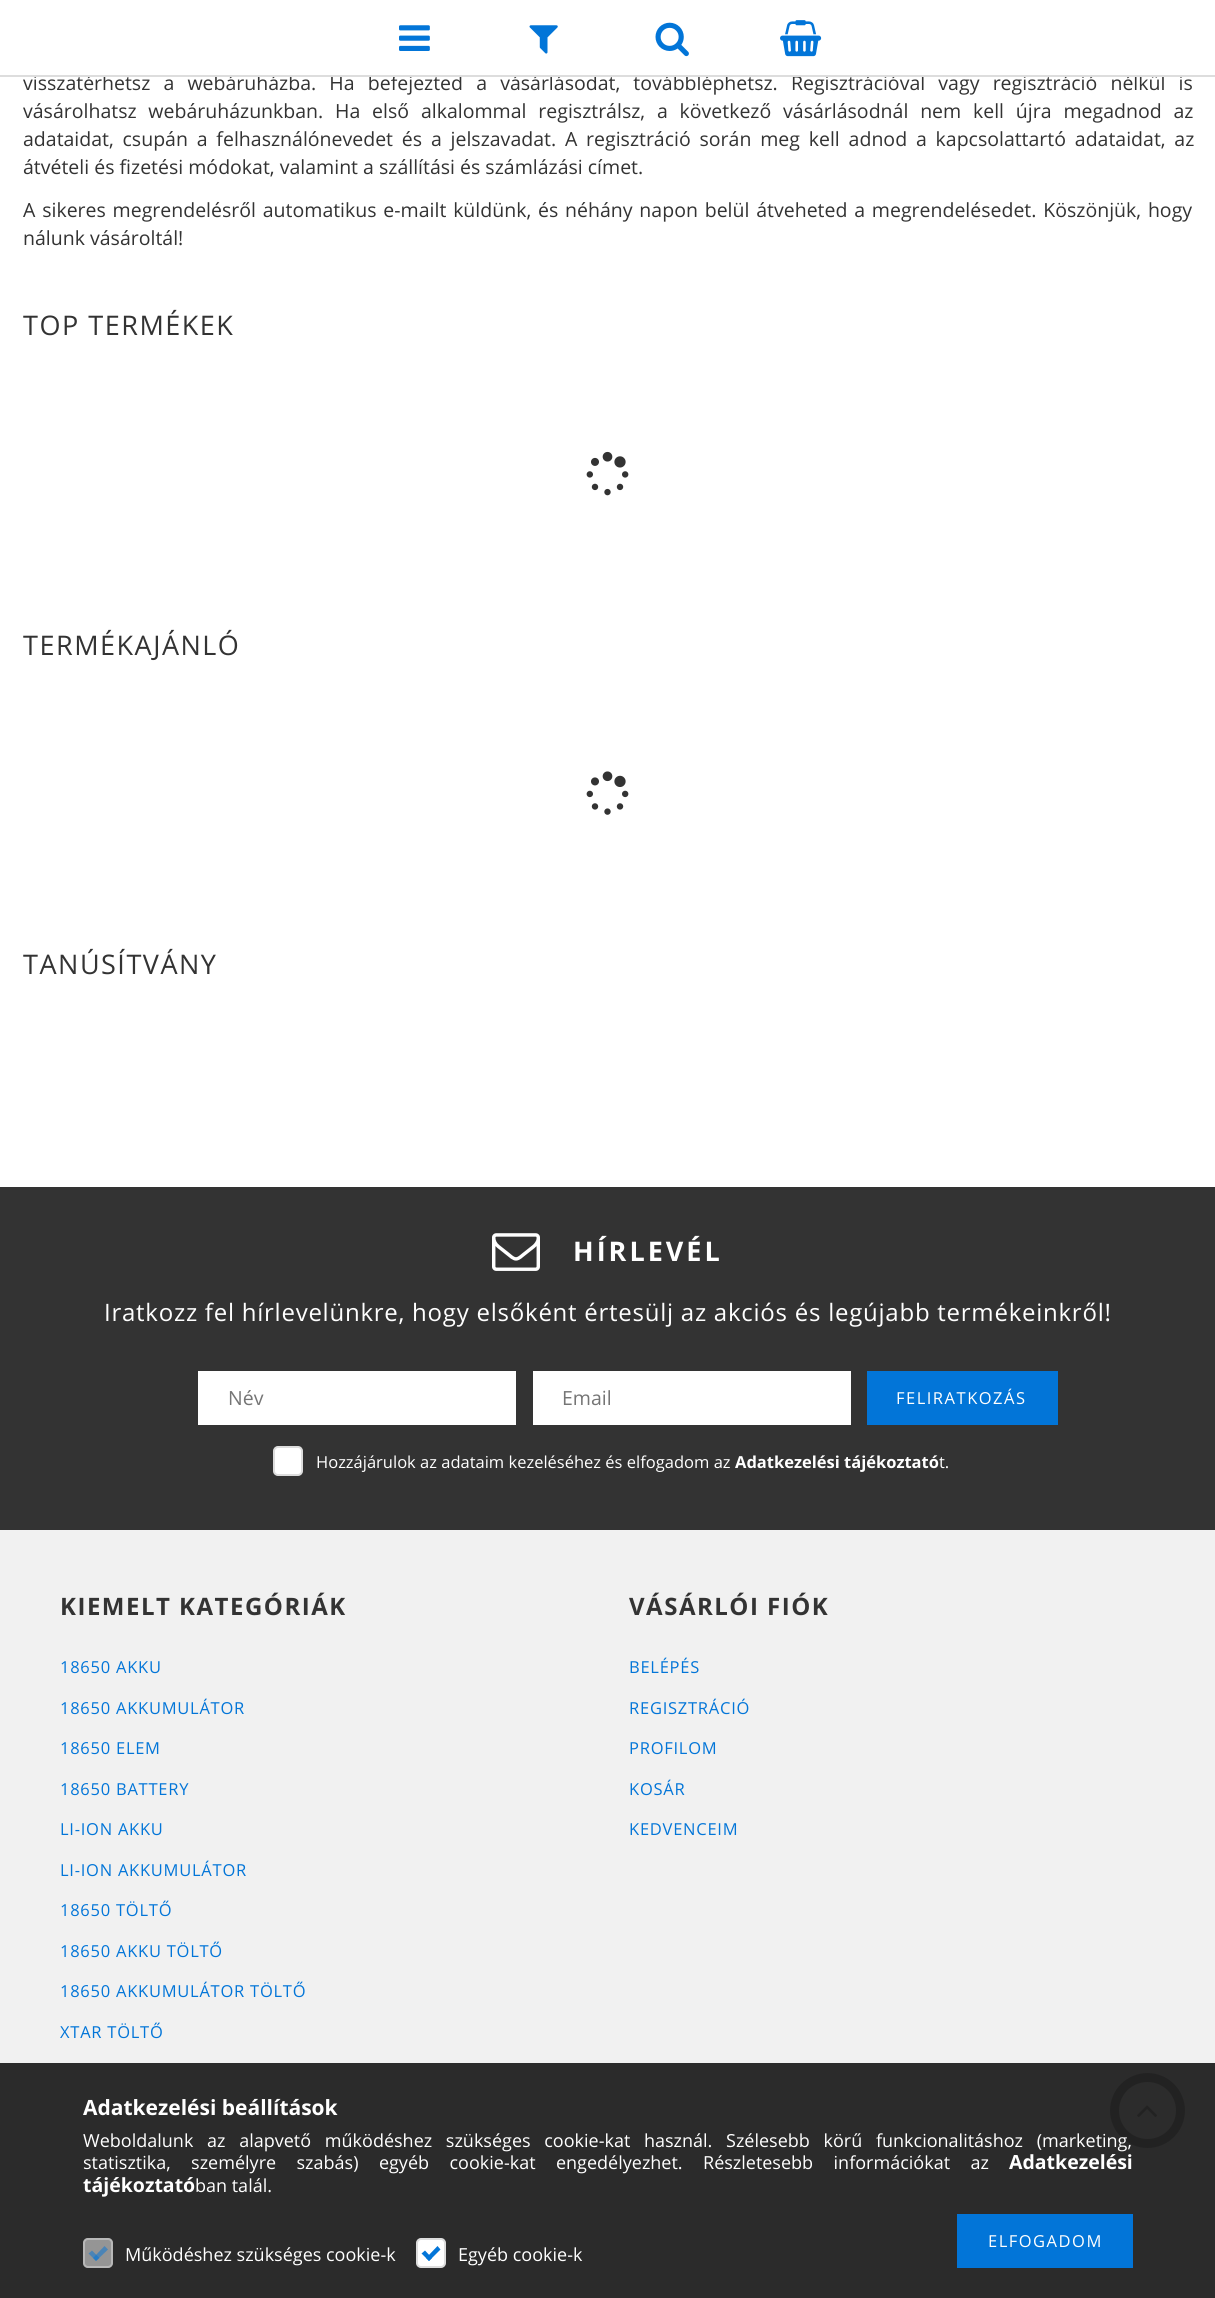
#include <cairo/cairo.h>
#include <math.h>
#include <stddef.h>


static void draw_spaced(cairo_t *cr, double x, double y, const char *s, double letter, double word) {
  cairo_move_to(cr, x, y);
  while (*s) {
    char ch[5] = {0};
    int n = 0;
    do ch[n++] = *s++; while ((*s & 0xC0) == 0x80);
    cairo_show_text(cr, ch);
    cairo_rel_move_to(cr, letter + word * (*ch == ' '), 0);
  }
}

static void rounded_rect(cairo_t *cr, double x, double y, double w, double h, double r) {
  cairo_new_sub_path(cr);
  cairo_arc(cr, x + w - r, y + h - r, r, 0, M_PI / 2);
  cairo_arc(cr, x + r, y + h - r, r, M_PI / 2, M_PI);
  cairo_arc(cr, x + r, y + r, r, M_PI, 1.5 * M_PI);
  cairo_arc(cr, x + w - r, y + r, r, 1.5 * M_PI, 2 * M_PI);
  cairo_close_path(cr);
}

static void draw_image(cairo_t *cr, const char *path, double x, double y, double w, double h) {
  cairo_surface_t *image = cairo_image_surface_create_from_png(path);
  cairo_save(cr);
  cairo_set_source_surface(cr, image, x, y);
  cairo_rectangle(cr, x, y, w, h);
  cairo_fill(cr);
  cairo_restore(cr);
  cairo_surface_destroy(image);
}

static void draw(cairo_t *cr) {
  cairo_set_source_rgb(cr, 1, 1, 1);
  cairo_paint(cr);
  draw_image(cr, "images/1.png", 399, 25, 31, 26);
  draw_image(cr, "images/2.png", 529, 25, 29, 29);
  draw_image(cr, "images/3.png", 655, 22, 34, 35);
  draw_image(cr, "images/4.png", 780, 20, 42, 37);
  draw_image(cr, "images/5.png", 586, 451, 43, 45);
  draw_image(cr, "images/6.png", 586, 771, 43, 44);
  cairo_set_source_rgb(cr, 51 / 255.0, 51 / 255.0, 51 / 255.0);
  cairo_rectangle(cr, 0, 1187, 1215, 343);
  cairo_fill(cr);
  draw_image(cr, "images/7.png", 492, 1233, 48, 38);
  cairo_set_source_rgb(cr, 1, 1, 1);
  cairo_rectangle(cr, 198, 1371, 318, 54);
  cairo_fill(cr);
  cairo_rectangle(cr, 533, 1371, 318, 54);
  cairo_fill(cr);
  cairo_set_source_rgb(cr, 2 / 255.0, 117 / 255.0, 216 / 255.0);
  cairo_rectangle(cr, 867, 1371, 191, 54);
  cairo_fill(cr);
  cairo_set_source_rgb(cr, 1, 1, 1);
  rounded_rect(cr, 274, 1447, 28, 28, 4);
  cairo_fill_preserve(cr);
  cairo_set_source_rgb(cr, 221 / 255.0, 221 / 255.0, 221 / 255.0);
  cairo_stroke(cr);
  cairo_set_source_rgb(cr, 241 / 255.0, 241 / 255.0, 241 / 255.0);
  cairo_rectangle(cr, 0, 1530, 1215, 768);
  cairo_fill(cr);
  cairo_set_source_rgb(cr, 252 / 255.0, 252 / 255.0, 252 / 255.0);
  cairo_arc(cr, 1147.5, 2110.5, 33, 0, 2 * M_PI);
  cairo_fill_preserve(cr);
  cairo_set_source_rgb(cr, 51 / 255.0, 51 / 255.0, 51 / 255.0);
  cairo_set_line_width(cr, 9);
  cairo_stroke(cr);
  draw_image(cr, "images/8.png", 1137, 2105, 21, 12);
  cairo_set_source_rgba(cr, 34 / 255.0, 34 / 255.0, 34 / 255.0, 0.95);
  cairo_rectangle(cr, 0, 2063, 1215, 235);
  cairo_fill(cr);
  cairo_set_source_rgb(cr, 2 / 255.0, 117 / 255.0, 216 / 255.0);
  cairo_rectangle(cr, 957, 2214, 176, 54);
  cairo_fill(cr);
  cairo_set_source_rgba(cr, 1, 1, 1, 0.5);
  rounded_rect(cr, 83, 2238, 30, 30, 5);
  cairo_fill(cr);
  rounded_rect(cr, 84, 2239, 28, 28, 4);
  cairo_set_source_rgba(cr, 221 / 255.0, 221 / 255.0, 221 / 255.0, 0.5);
  cairo_set_line_width(cr, 2);
  cairo_stroke(cr);
  cairo_set_source_rgba(cr, 2 / 255.0, 117 / 255.0, 216 / 255.0, 0.5);
  cairo_new_path(cr);
  cairo_move_to(cr, 93, 2258);
  cairo_line_to(cr, 104.5, 2246);
  cairo_line_to(cr, 108, 2249.5);
  cairo_line_to(cr, 96, 2261);
  cairo_close_path(cr);
  cairo_fill(cr);
  cairo_new_path(cr);
  cairo_move_to(cr, 88.5, 2253.5);
  cairo_line_to(cr, 92, 2250.5);
  cairo_line_to(cr, 99.5, 2258);
  cairo_line_to(cr, 96, 2261);
  cairo_close_path(cr);
  cairo_fill(cr);
  cairo_set_source_rgb(cr, 1, 1, 1);
  rounded_rect(cr, 417, 2239, 28, 28, 4);
  cairo_fill_preserve(cr);
  cairo_set_source_rgb(cr, 221 / 255.0, 221 / 255.0, 221 / 255.0);
  cairo_stroke(cr);
  cairo_set_source_rgb(cr, 2 / 255.0, 117 / 255.0, 216 / 255.0);
  cairo_new_path(cr);
  cairo_move_to(cr, 426, 2258);
  cairo_line_to(cr, 437.5, 2246);
  cairo_line_to(cr, 440.5, 2249.5);
  cairo_line_to(cr, 429, 2261);
  cairo_close_path(cr);
  cairo_fill(cr);
  cairo_new_path(cr);
  cairo_move_to(cr, 421.5, 2253.5);
  cairo_line_to(cr, 425, 2250.5);
  cairo_line_to(cr, 432, 2258);
  cairo_line_to(cr, 429, 2261);
  cairo_close_path(cr);
  cairo_fill(cr);
  cairo_select_font_face(cr, "Open Sans", CAIRO_FONT_SLANT_NORMAL, CAIRO_FONT_WEIGHT_NORMAL);
  cairo_set_font_size(cr, 19.5);
  cairo_set_source_rgb(cr, 51 / 255.0, 51 / 255.0, 51 / 255.0);
  draw_spaced(cr, 23, 90, "visszatérhetsz a webáruházba. Ha befejezted a vásárlásodat, továbbléphetsz. Regisztrációval vagy regisztráció nélkül is", 0, 8.1);
  cairo_set_source_rgb(cr, 221 / 255.0, 221 / 255.0, 221 / 255.0);
  cairo_rectangle(cr, 0, 75, 1215, 2);
  cairo_fill(cr);
  cairo_set_source_rgb(cr, 51 / 255.0, 51 / 255.0, 51 / 255.0);
  draw_spaced(cr, 23, 118, "vásárolhatsz webáruházunkban. Ha első alkalommal regisztrálsz, a következő vásárlásodnál nem kell újra megadnod az", 0, 6.75);
  draw_spaced(cr, 23, 146, "adataidat, csupán a felhasználónevedet és a jelszavadat. A regisztráció során meg kell adnod a kapcsolattartó adataidat, az", 0, 3.75);
  cairo_move_to(cr, 23, 174);
  cairo_show_text(cr, "átvételi és fizetési módokat, valamint a szállítási és számlázási címet.");
  draw_spaced(cr, 23, 217, "A sikeres megrendelésről automatikus e-mailt küldünk, és néhány napon belül átveheted a megrendelésedet. Köszönjük, hogy", 0, 1.75);
  cairo_move_to(cr, 23, 245);
  cairo_show_text(cr, "nálunk vásároltál!");
  cairo_set_font_size(cr, 27);
  draw_spaced(cr, 23, 335, "TOP TERMÉKEK", 1.5, 0);
  draw_spaced(cr, 23, 655, "TERMÉKAJÁNLÓ", 1.5, 0);
  draw_spaced(cr, 23, 974, "TANÚSÍTVÁNY", 1.5, 0);
  cairo_select_font_face(cr, "Open Sans", CAIRO_FONT_SLANT_NORMAL, CAIRO_FONT_WEIGHT_BOLD);
  cairo_set_source_rgb(cr, 1, 1, 1);
  draw_spaced(cr, 573, 1261, "HÍRLEVÉL", 3, 0);
  cairo_select_font_face(cr, "Open Sans", CAIRO_FONT_SLANT_NORMAL, CAIRO_FONT_WEIGHT_NORMAL);
  cairo_set_font_size(cr, 24);
  draw_spaced(cr, 104, 1321, "Iratkozz fel hírlevelünkre, hogy elsőként értesülj az akciós és legújabb termékeinkről!", 0.75, 0);
  cairo_set_font_size(cr, 19.5);
  cairo_set_source_rgb(cr, 117 / 255.0, 117 / 255.0, 117 / 255.0);
  cairo_move_to(cr, 228, 1405);
  cairo_show_text(cr, "Név");
  cairo_move_to(cr, 562, 1405);
  cairo_show_text(cr, "Email");
  cairo_set_font_size(cr, 16.5);
  cairo_set_source_rgb(cr, 1, 1, 1);
  draw_spaced(cr, 896, 1404, "FELIRATKOZÁS", 1.5, 0);
  cairo_move_to(cr, 316, 1468);
  cairo_show_text(cr, "Hozzájárulok az adataim kezeléséhez és elfogadom az");
  cairo_select_font_face(cr, "Open Sans", CAIRO_FONT_SLANT_NORMAL, CAIRO_FONT_WEIGHT_BOLD);
  cairo_move_to(cr, 735, 1468);
  cairo_show_text(cr, "Adatkezelési tájékoztató");
  cairo_select_font_face(cr, "Open Sans", CAIRO_FONT_SLANT_NORMAL, CAIRO_FONT_WEIGHT_NORMAL);
  cairo_move_to(cr, 939, 1468);
  cairo_show_text(cr, "t.");
  cairo_select_font_face(cr, "Open Sans", CAIRO_FONT_SLANT_NORMAL, CAIRO_FONT_WEIGHT_BOLD);
  cairo_set_font_size(cr, 24);
  cairo_set_source_rgb(cr, 51 / 255.0, 51 / 255.0, 51 / 255.0);
  draw_spaced(cr, 60, 1615, "KIEMELT KATEGÓRIÁK", 1.5, 0);
  cairo_select_font_face(cr, "Open Sans", CAIRO_FONT_SLANT_NORMAL, CAIRO_FONT_WEIGHT_NORMAL);
  cairo_set_font_size(cr, 16.5);
  cairo_set_source_rgb(cr, 2 / 255.0, 117 / 255.0, 216 / 255.0);
  draw_spaced(cr, 60, 1673, "18650 AKKU", 0.75, 0);
  draw_spaced(cr, 60, 1714, "18650 AKKUMULÁTOR", 0.75, 0);
  draw_spaced(cr, 60, 1754, "18650 ELEM", 0.75, 0);
  draw_spaced(cr, 60, 1795, "18650 BATTERY", 0.75, 0);
  draw_spaced(cr, 60, 1835, "LI-ION AKKU", 0.75, 0);
  draw_spaced(cr, 60, 1876, "LI-ION AKKUMULÁTOR", 0.75, 0);
  draw_spaced(cr, 60, 1916, "18650 TÖLTŐ", 0.75, 0);
  draw_spaced(cr, 60, 1957, "18650 AKKU TÖLTŐ", 0.75, 0);
  draw_spaced(cr, 60, 1997, "18650 AKKUMULÁTOR TÖLTŐ", 0.75, 0);
  draw_spaced(cr, 60, 2038, "XTAR TÖLTŐ", 0.75, 0);
  cairo_select_font_face(cr, "Open Sans", CAIRO_FONT_SLANT_NORMAL, CAIRO_FONT_WEIGHT_BOLD);
  cairo_set_font_size(cr, 24);
  cairo_set_source_rgb(cr, 51 / 255.0, 51 / 255.0, 51 / 255.0);
  draw_spaced(cr, 629, 1615, "VÁSÁRLÓI FIÓK", 1.5, 0);
  cairo_select_font_face(cr, "Open Sans", CAIRO_FONT_SLANT_NORMAL, CAIRO_FONT_WEIGHT_NORMAL);
  cairo_set_font_size(cr, 16.5);
  cairo_set_source_rgb(cr, 2 / 255.0, 117 / 255.0, 216 / 255.0);
  draw_spaced(cr, 629, 1673, "BELÉPÉS", 0.75, 0);
  draw_spaced(cr, 629, 1714, "REGISZTRÁCIÓ", 0.75, 0);
  draw_spaced(cr, 629, 1754, "PROFILOM", 0.75, 0);
  draw_spaced(cr, 629, 1795, "KOSÁR", 0.75, 0);
  draw_spaced(cr, 629, 1835, "KEDVENCEIM", 0.75, 0);
  cairo_select_font_face(cr, "Open Sans", CAIRO_FONT_SLANT_NORMAL, CAIRO_FONT_WEIGHT_BOLD);
  cairo_set_font_size(cr, 21);
  cairo_set_source_rgb(cr, 1, 1, 1);
  cairo_move_to(cr, 83, 2115);
  cairo_show_text(cr, "Adatkezelési beállítások");
  cairo_select_font_face(cr, "Open Sans", CAIRO_FONT_SLANT_NORMAL, CAIRO_FONT_WEIGHT_NORMAL);
  cairo_set_font_size(cr, 18);
  draw_spaced(cr, 83, 2147, "Weboldalunk az alapvető működéshez szükséges cookie-kat használ. Szélesebb körű funkcionalitáshoz (marketing,", 0, 9);
  draw_spaced(cr, 83, 2169, "statisztika, személyre szabás) egyéb cookie-kat engedélyezhet. Részletesebb információkat az", 0, 15.75);
  cairo_select_font_face(cr, "Open Sans", CAIRO_FONT_SLANT_NORMAL, CAIRO_FONT_WEIGHT_BOLD);
  cairo_set_font_size(cr, 19.5);
  cairo_move_to(cr, 1009, 2169);
  cairo_show_text(cr, "Adatkezelési");
  cairo_move_to(cr, 83, 2192);
  cairo_show_text(cr, "tájékoztató");
  cairo_select_font_face(cr, "Open Sans", CAIRO_FONT_SLANT_NORMAL, CAIRO_FONT_WEIGHT_NORMAL);
  cairo_set_font_size(cr, 18);
  cairo_move_to(cr, 195, 2192);
  cairo_show_text(cr, "ban talál.");
  cairo_set_font_size(cr, 16.5);
  draw_spaced(cr, 988, 2247, "ELFOGADOM", 1.5, 0);
  cairo_set_font_size(cr, 18);
  cairo_move_to(cr, 125, 2261);
  cairo_show_text(cr, "Működéshez szükséges cookie-k");
  cairo_move_to(cr, 458, 2261);
  cairo_show_text(cr, "Egyéb cookie-k");
}

int main(void) {
  cairo_surface_t *surface = cairo_image_surface_create(CAIRO_FORMAT_RGB24, 1215, 2298);
  cairo_t *cr = cairo_create(surface);
  cairo_font_options_t *options = cairo_font_options_create();
  cairo_font_options_set_hint_metrics(options, CAIRO_HINT_METRICS_OFF);
  cairo_font_options_set_hint_style(options, CAIRO_HINT_STYLE_NONE);
  cairo_set_font_options(cr, options);
  cairo_set_miter_limit(cr, 4);
  draw(cr);
  cairo_surface_write_to_png(surface, "out.png");
  cairo_font_options_destroy(options);
  cairo_destroy(cr);
  cairo_surface_destroy(surface);
  return 0;
}
